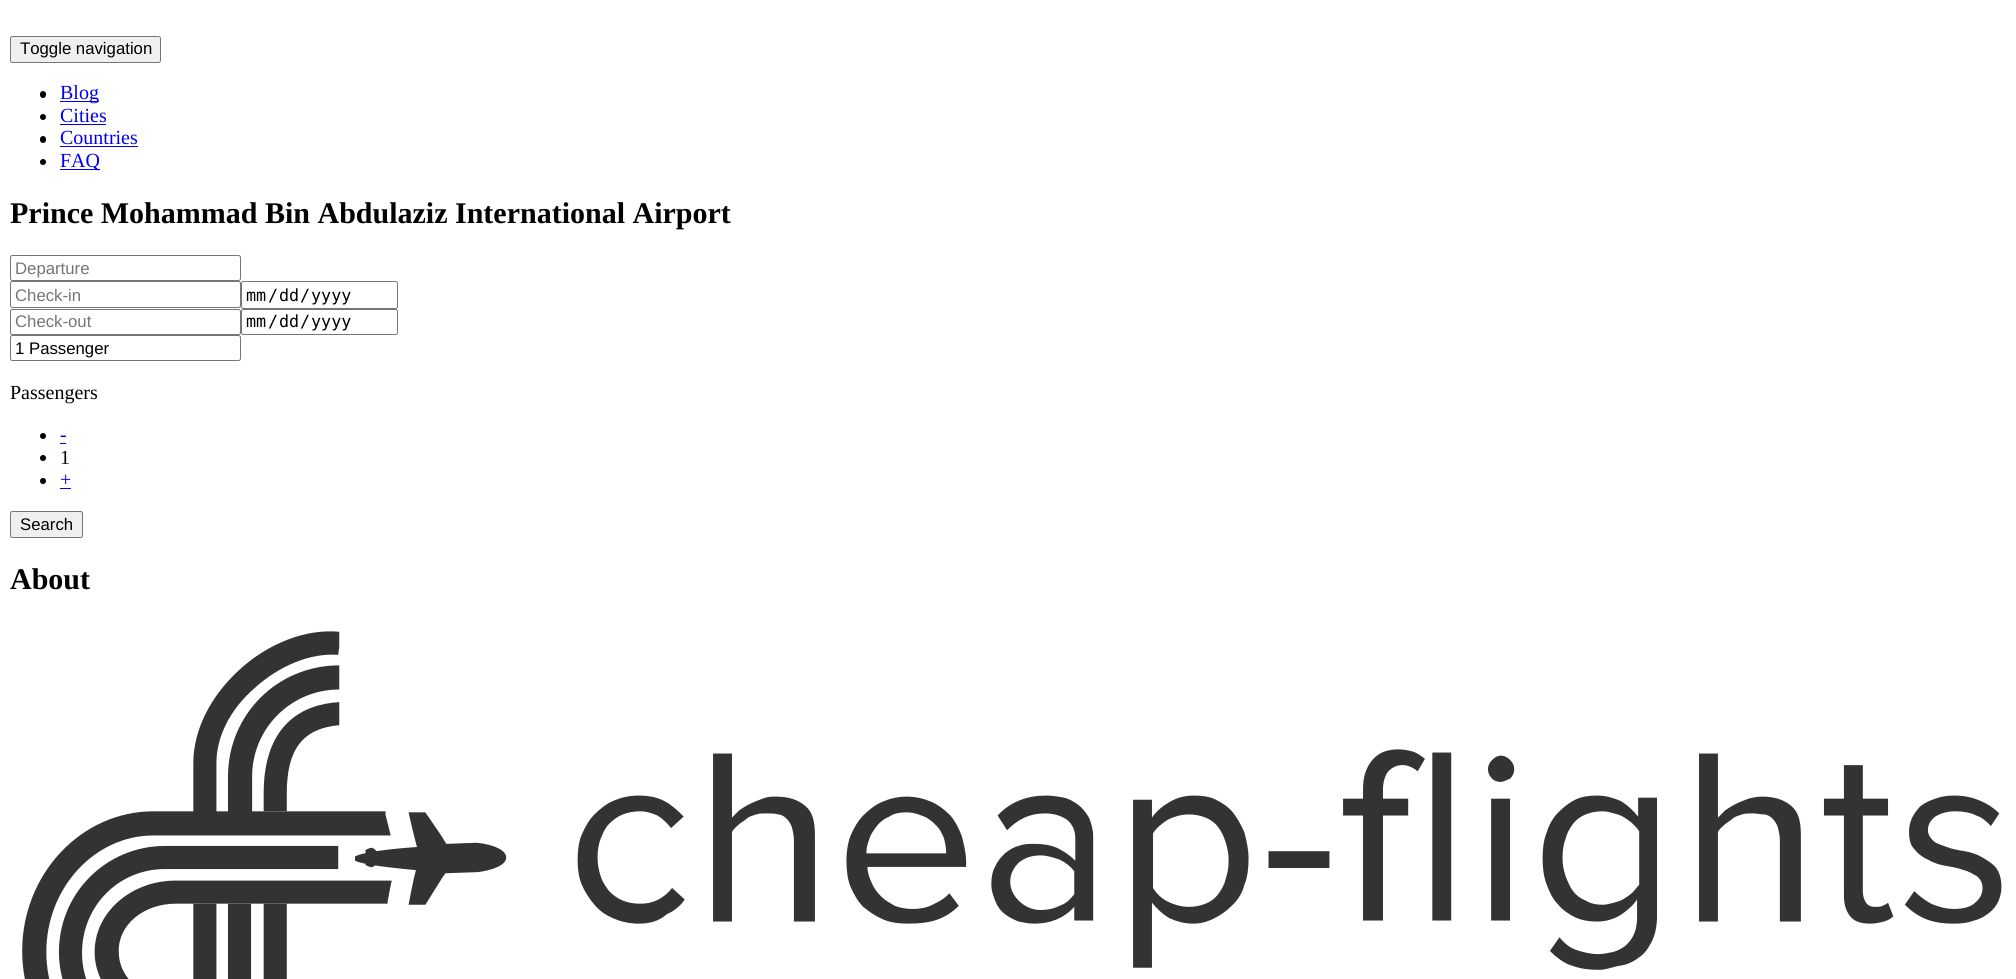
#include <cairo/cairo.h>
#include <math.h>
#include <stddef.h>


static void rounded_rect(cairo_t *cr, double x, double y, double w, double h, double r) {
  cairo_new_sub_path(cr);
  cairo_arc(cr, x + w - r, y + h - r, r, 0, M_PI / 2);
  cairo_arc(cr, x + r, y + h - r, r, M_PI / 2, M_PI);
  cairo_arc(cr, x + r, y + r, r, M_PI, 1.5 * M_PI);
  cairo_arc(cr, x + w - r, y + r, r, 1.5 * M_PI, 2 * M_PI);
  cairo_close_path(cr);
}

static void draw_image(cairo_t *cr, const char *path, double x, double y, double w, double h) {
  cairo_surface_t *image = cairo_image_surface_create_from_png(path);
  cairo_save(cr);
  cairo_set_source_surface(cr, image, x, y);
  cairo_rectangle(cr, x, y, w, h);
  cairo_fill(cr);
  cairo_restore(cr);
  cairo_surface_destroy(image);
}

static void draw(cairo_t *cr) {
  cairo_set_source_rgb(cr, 1, 1, 1);
  cairo_paint(cr);
  cairo_set_source_rgb(cr, 239 / 255.0, 239 / 255.0, 239 / 255.0);
  rounded_rect(cr, 10.5, 36.5, 150, 26, 2);
  cairo_fill_preserve(cr);
  cairo_set_source_rgb(cr, 118 / 255.0, 118 / 255.0, 118 / 255.0);
  cairo_set_line_width(cr, 1);
  cairo_stroke(cr);
  cairo_set_source_rgb(cr, 0, 0, 0);
  rounded_rect(cr, 40, 91, 6, 7, 3);
  cairo_fill(cr);
  cairo_set_source_rgb(cr, 0, 0, 238 / 255.0);
  cairo_rectangle(cr, 60, 101, 39, 1);
  cairo_fill(cr);
  cairo_set_source_rgb(cr, 0, 0, 0);
  cairo_arc(cr, 43, 117, 3, 0, 2 * M_PI);
  cairo_fill(cr);
  cairo_set_source_rgb(cr, 0, 0, 238 / 255.0);
  cairo_rectangle(cr, 60, 124, 46, 1);
  cairo_fill(cr);
  cairo_set_source_rgb(cr, 0, 0, 0);
  rounded_rect(cr, 40, 136, 6, 7, 3);
  cairo_fill(cr);
  cairo_set_source_rgb(cr, 0, 0, 238 / 255.0);
  cairo_rectangle(cr, 60, 146, 78, 1);
  cairo_fill(cr);
  cairo_set_source_rgb(cr, 0, 0, 0);
  cairo_arc(cr, 43, 162, 3, 0, 2 * M_PI);
  cairo_fill(cr);
  cairo_set_source_rgb(cr, 0, 0, 238 / 255.0);
  cairo_rectangle(cr, 60, 169, 40, 1);
  cairo_fill(cr);
  rounded_rect(cr, 10.5, 255.5, 230, 25, 2);
  cairo_set_source_rgb(cr, 118 / 255.0, 118 / 255.0, 118 / 255.0);
  cairo_stroke(cr);
  rounded_rect(cr, 10.5, 281.5, 230, 26, 2);
  cairo_stroke(cr);
  rounded_rect(cr, 241.5, 281.5, 156, 27, 2);
  cairo_stroke(cr);
  rounded_rect(cr, 10.5, 309.5, 230, 25, 2);
  cairo_stroke(cr);
  rounded_rect(cr, 241.5, 309.5, 156, 25, 2);
  cairo_stroke(cr);
  rounded_rect(cr, 10.5, 335.5, 230, 25, 2);
  cairo_stroke(cr);
  cairo_set_source_rgb(cr, 0, 0, 0);
  cairo_arc(cr, 43, 436, 3, 0, 2 * M_PI);
  cairo_fill(cr);
  cairo_set_source_rgb(cr, 0, 0, 238 / 255.0);
  cairo_rectangle(cr, 60, 443, 6, 1);
  cairo_fill(cr);
  cairo_set_source_rgb(cr, 0, 0, 0);
  cairo_arc(cr, 43, 458, 3, 0, 2 * M_PI);
  cairo_fill(cr);
  cairo_arc(cr, 43, 481, 3, 0, 2 * M_PI);
  cairo_fill(cr);
  cairo_set_source_rgb(cr, 0, 0, 238 / 255.0);
  cairo_rectangle(cr, 60, 488, 11, 1);
  cairo_fill(cr);
  cairo_set_source_rgb(cr, 239 / 255.0, 239 / 255.0, 239 / 255.0);
  rounded_rect(cr, 10.5, 511.5, 72, 26, 2);
  cairo_fill_preserve(cr);
  cairo_set_source_rgb(cr, 118 / 255.0, 118 / 255.0, 118 / 255.0);
  cairo_stroke(cr);
  draw_image(cr, "images/1.png", 22, 631, 1980, 348);
  cairo_select_font_face(cr, "Liberation Sans", CAIRO_FONT_SLANT_NORMAL, CAIRO_FONT_WEIGHT_NORMAL);
  cairo_set_font_size(cr, 16.75);
  cairo_set_source_rgb(cr, 0, 0, 0);
  cairo_move_to(cr, 20, 54);
  cairo_show_text(cr, "Toggle navigation");
  cairo_select_font_face(cr, "Liberation Serif", CAIRO_FONT_SLANT_NORMAL, CAIRO_FONT_WEIGHT_NORMAL);
  cairo_set_font_size(cr, 20);
  cairo_set_source_rgb(cr, 0, 0, 238 / 255.0);
  cairo_move_to(cr, 60, 99);
  cairo_show_text(cr, "Blog");
  cairo_move_to(cr, 60, 122);
  cairo_show_text(cr, "Cities");
  cairo_move_to(cr, 60, 144);
  cairo_show_text(cr, "Countries");
  cairo_move_to(cr, 60, 167);
  cairo_show_text(cr, "FAQ");
  cairo_select_font_face(cr, "Liberation Serif", CAIRO_FONT_SLANT_NORMAL, CAIRO_FONT_WEIGHT_BOLD);
  cairo_set_font_size(cr, 30);
  cairo_set_source_rgb(cr, 0, 0, 0);
  cairo_move_to(cr, 10, 223);
  cairo_show_text(cr, "Prince Mohammad Bin Abdulaziz International Airport");
  cairo_select_font_face(cr, "Liberation Sans", CAIRO_FONT_SLANT_NORMAL, CAIRO_FONT_WEIGHT_NORMAL);
  cairo_set_font_size(cr, 16.75);
  cairo_set_source_rgb(cr, 117 / 255.0, 117 / 255.0, 117 / 255.0);
  cairo_move_to(cr, 15, 274);
  cairo_show_text(cr, "Departure");
  cairo_move_to(cr, 15, 301);
  cairo_show_text(cr, "Check-in");
  cairo_select_font_face(cr, "DejaVu Sans Mono", CAIRO_FONT_SLANT_NORMAL, CAIRO_FONT_WEIGHT_NORMAL);
  cairo_set_source_rgb(cr, 0, 0, 0);
  cairo_move_to(cr, 246, 301);
  cairo_show_text(cr, "mm");
  cairo_move_to(cr, 268, 301);
  cairo_show_text(cr, "/");
  cairo_move_to(cr, 279, 301);
  cairo_show_text(cr, "dd");
  cairo_move_to(cr, 300, 301);
  cairo_show_text(cr, "/");
  cairo_move_to(cr, 311, 301);
  cairo_show_text(cr, "yyyy");
  cairo_select_font_face(cr, "Liberation Sans", CAIRO_FONT_SLANT_NORMAL, CAIRO_FONT_WEIGHT_NORMAL);
  cairo_set_source_rgb(cr, 117 / 255.0, 117 / 255.0, 117 / 255.0);
  cairo_move_to(cr, 15, 327);
  cairo_show_text(cr, "Check-out");
  cairo_select_font_face(cr, "DejaVu Sans Mono", CAIRO_FONT_SLANT_NORMAL, CAIRO_FONT_WEIGHT_NORMAL);
  cairo_set_source_rgb(cr, 0, 0, 0);
  cairo_move_to(cr, 246, 327);
  cairo_show_text(cr, "mm");
  cairo_move_to(cr, 268, 327);
  cairo_show_text(cr, "/");
  cairo_move_to(cr, 279, 327);
  cairo_show_text(cr, "dd");
  cairo_move_to(cr, 300, 327);
  cairo_show_text(cr, "/");
  cairo_move_to(cr, 311, 327);
  cairo_show_text(cr, "yyyy");
  cairo_select_font_face(cr, "Liberation Sans", CAIRO_FONT_SLANT_NORMAL, CAIRO_FONT_WEIGHT_NORMAL);
  cairo_move_to(cr, 15, 354);
  cairo_show_text(cr, "1 Passenger");
  cairo_select_font_face(cr, "Liberation Serif", CAIRO_FONT_SLANT_NORMAL, CAIRO_FONT_WEIGHT_NORMAL);
  cairo_set_font_size(cr, 20);
  cairo_move_to(cr, 10, 399);
  cairo_show_text(cr, "Passengers");
  cairo_set_source_rgb(cr, 0, 0, 238 / 255.0);
  cairo_move_to(cr, 60, 441);
  cairo_show_text(cr, "-");
  cairo_set_source_rgb(cr, 0, 0, 0);
  cairo_move_to(cr, 60, 464);
  cairo_show_text(cr, "1");
  cairo_set_source_rgb(cr, 0, 0, 238 / 255.0);
  cairo_move_to(cr, 60, 486);
  cairo_show_text(cr, "+");
  cairo_select_font_face(cr, "Liberation Sans", CAIRO_FONT_SLANT_NORMAL, CAIRO_FONT_WEIGHT_NORMAL);
  cairo_set_font_size(cr, 16.75);
  cairo_set_source_rgb(cr, 0, 0, 0);
  cairo_move_to(cr, 20, 530);
  cairo_show_text(cr, "Search");
  cairo_select_font_face(cr, "Liberation Serif", CAIRO_FONT_SLANT_NORMAL, CAIRO_FONT_WEIGHT_BOLD);
  cairo_set_font_size(cr, 30);
  cairo_move_to(cr, 10, 589);
  cairo_show_text(cr, "About");
}

int main(void) {
  cairo_surface_t *surface = cairo_image_surface_create(CAIRO_FORMAT_RGB24, 2016, 979);
  cairo_t *cr = cairo_create(surface);
  cairo_font_options_t *options = cairo_font_options_create();
  cairo_font_options_set_hint_metrics(options, CAIRO_HINT_METRICS_OFF);
  cairo_font_options_set_hint_style(options, CAIRO_HINT_STYLE_NONE);
  cairo_set_font_options(cr, options);
  cairo_set_miter_limit(cr, 4);
  draw(cr);
  cairo_surface_write_to_png(surface, "out.png");
  cairo_font_options_destroy(options);
  cairo_destroy(cr);
  cairo_surface_destroy(surface);
  return 0;
}
